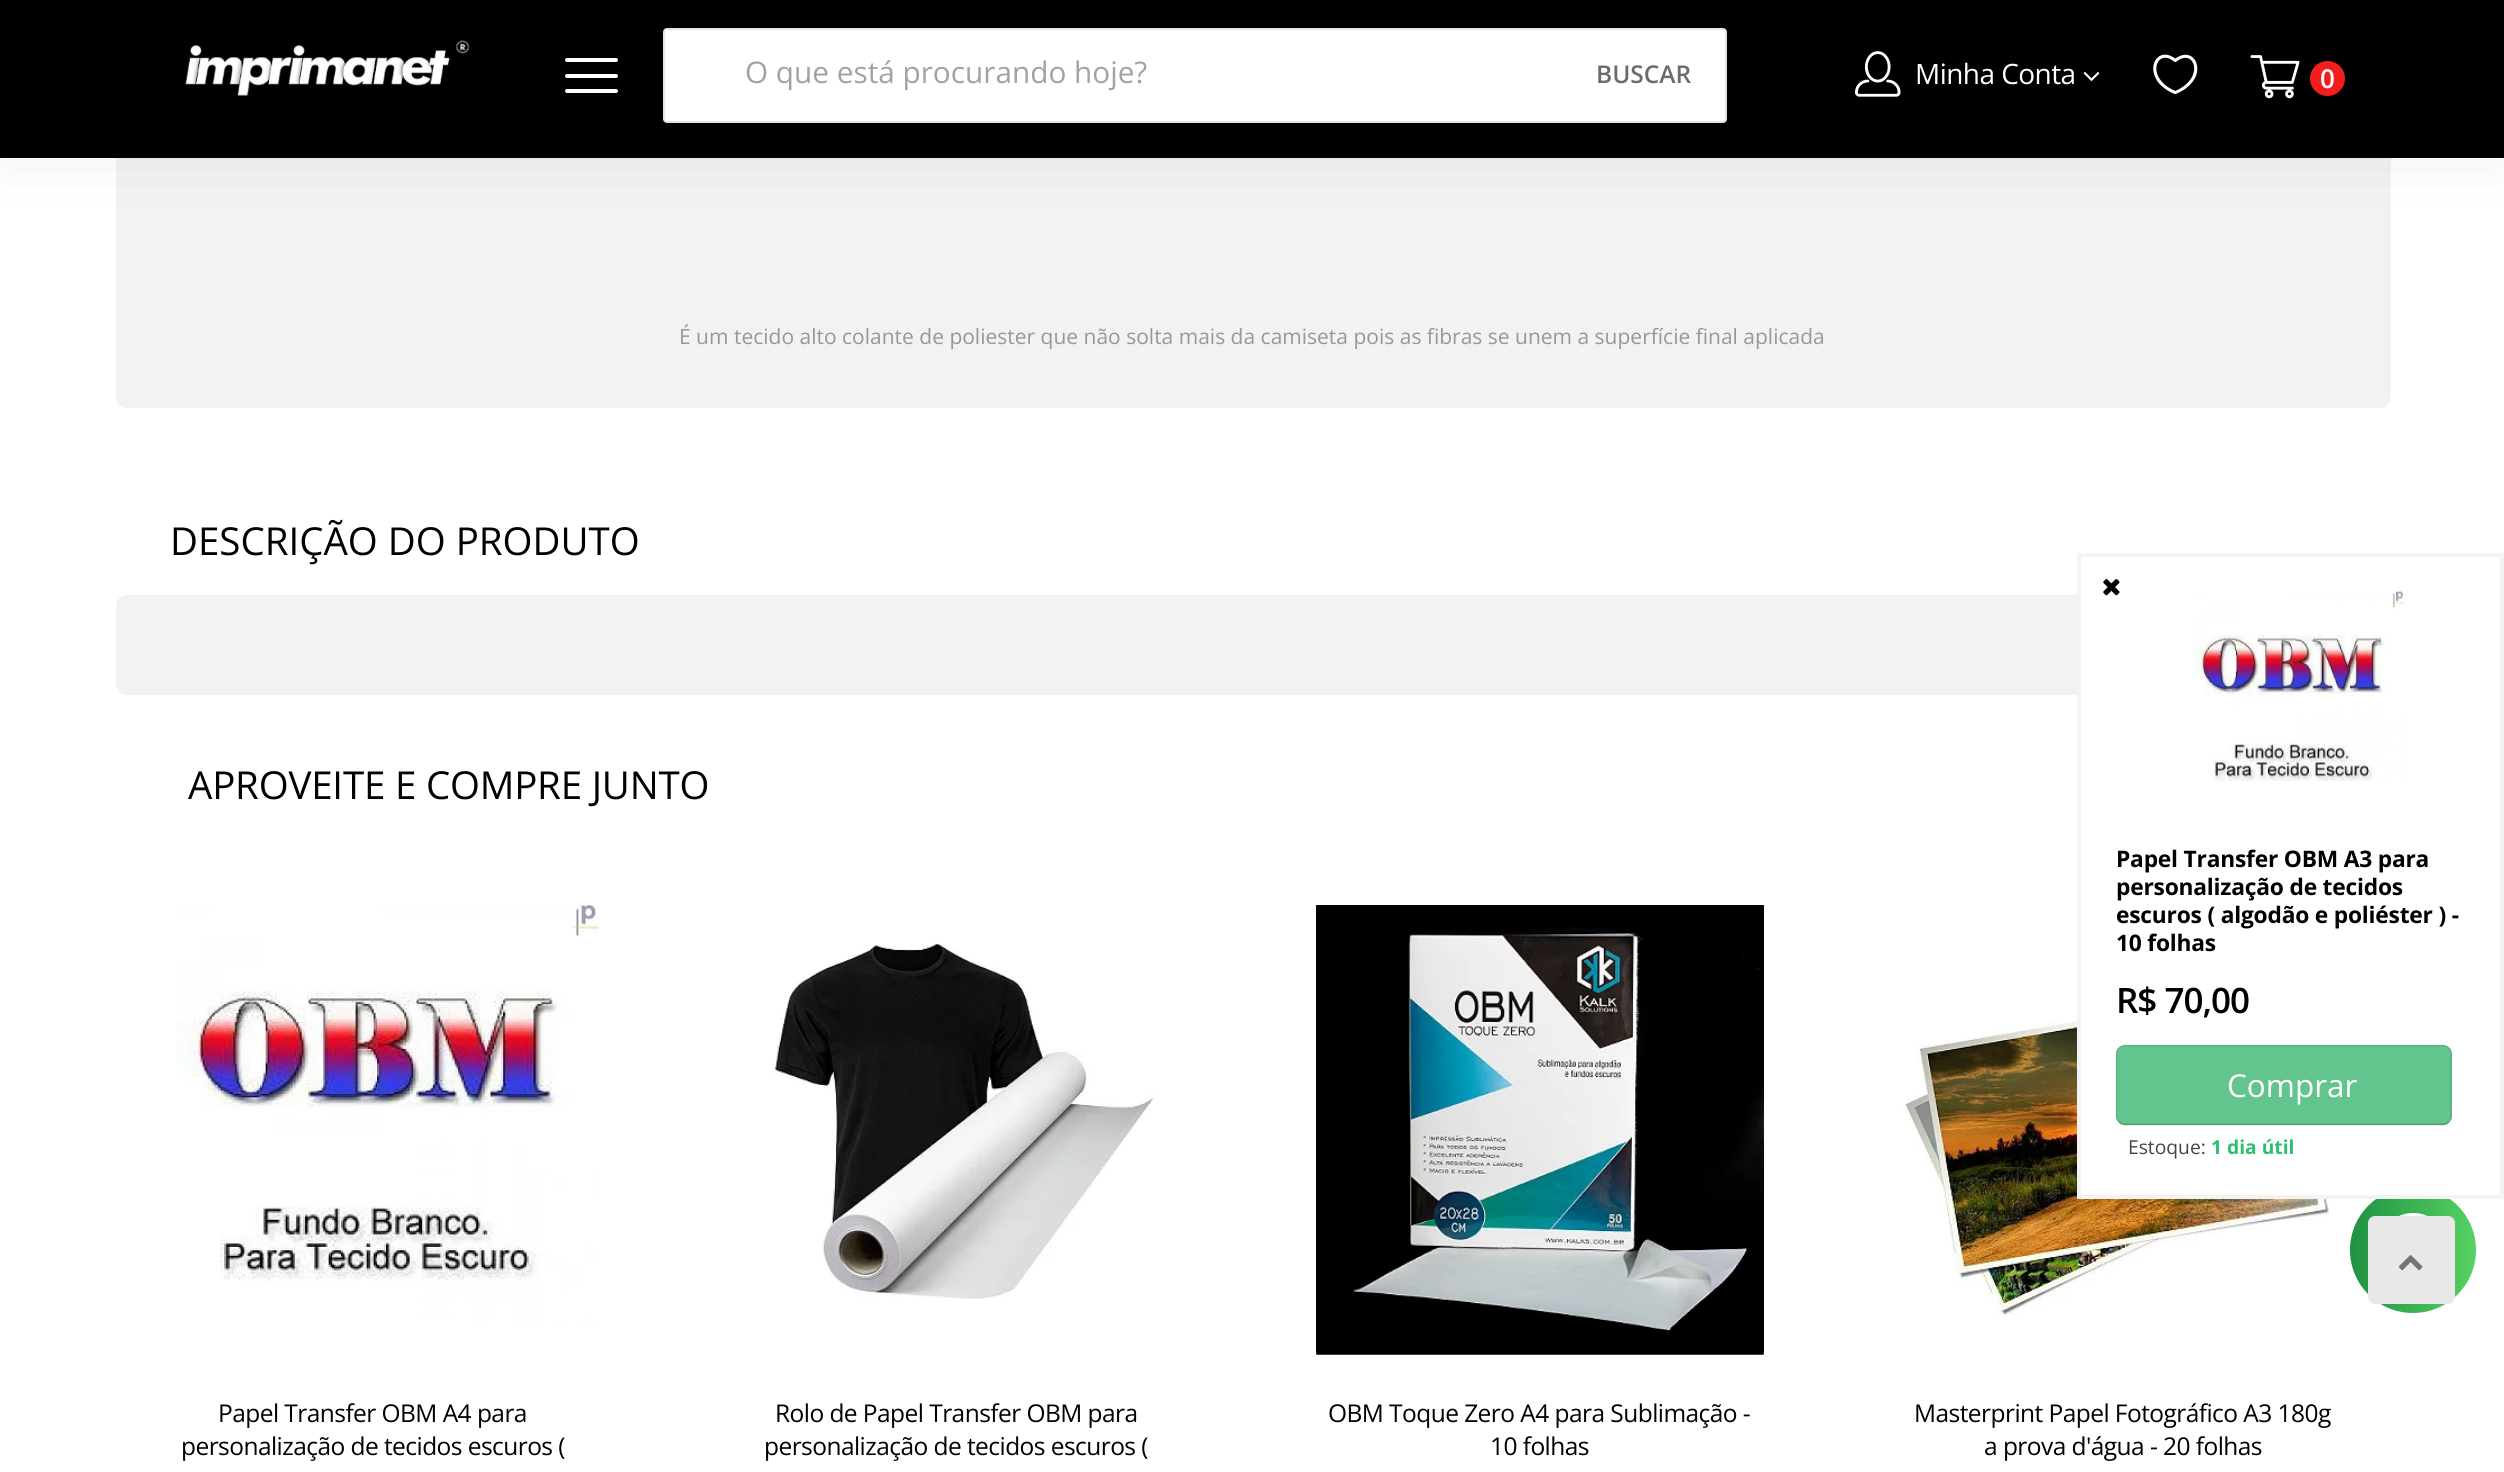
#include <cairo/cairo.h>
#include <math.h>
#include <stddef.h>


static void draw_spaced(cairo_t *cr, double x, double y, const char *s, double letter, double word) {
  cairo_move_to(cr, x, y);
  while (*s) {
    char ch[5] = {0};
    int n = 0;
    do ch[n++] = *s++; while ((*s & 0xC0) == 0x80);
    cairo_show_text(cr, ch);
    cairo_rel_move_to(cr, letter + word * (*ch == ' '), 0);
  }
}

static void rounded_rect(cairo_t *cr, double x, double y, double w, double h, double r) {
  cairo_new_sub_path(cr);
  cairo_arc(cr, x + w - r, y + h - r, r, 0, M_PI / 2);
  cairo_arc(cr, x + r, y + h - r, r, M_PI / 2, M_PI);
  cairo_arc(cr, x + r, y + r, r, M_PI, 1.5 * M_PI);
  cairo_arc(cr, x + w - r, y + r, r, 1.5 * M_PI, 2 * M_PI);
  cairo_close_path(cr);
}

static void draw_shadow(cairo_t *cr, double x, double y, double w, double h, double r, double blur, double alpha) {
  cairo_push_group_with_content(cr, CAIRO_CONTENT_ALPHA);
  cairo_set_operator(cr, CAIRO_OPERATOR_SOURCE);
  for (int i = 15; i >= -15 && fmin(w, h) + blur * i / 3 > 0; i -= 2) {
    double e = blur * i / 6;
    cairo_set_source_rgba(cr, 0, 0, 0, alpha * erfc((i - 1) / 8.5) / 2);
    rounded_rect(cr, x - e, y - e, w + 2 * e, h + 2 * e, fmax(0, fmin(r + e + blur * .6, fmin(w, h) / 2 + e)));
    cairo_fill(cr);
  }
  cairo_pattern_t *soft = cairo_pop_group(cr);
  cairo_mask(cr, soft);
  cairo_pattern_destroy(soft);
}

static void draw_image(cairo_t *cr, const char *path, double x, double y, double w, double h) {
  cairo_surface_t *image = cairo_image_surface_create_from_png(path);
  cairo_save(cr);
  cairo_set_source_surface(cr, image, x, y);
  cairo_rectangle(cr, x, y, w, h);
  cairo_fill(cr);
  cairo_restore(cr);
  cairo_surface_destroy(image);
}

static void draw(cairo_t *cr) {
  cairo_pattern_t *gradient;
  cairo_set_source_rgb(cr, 1, 1, 1);
  cairo_paint(cr);
  cairo_set_source_rgb(cr, 242 / 255.0, 242 / 255.0, 242 / 255.0);
  rounded_rect(cr, 116, -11, 2275, 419, 11);
  cairo_fill(cr);
  cairo_set_source_rgb(cr, 74 / 255.0, 81 / 255.0, 81 / 255.0);
  draw_shadow(cr, 0, 0, 2504, 158, 0, 26, 0.1);
  cairo_set_source_rgb(cr, 0, 0, 0);
  cairo_rectangle(cr, 0, 0, 2504, 158);
  cairo_fill(cr);
  draw_image(cr, "images/1.png", 185, 40, 285, 56);
  cairo_set_source_rgb(cr, 1, 1, 1);
  rounded_rect(cr, 565, 58, 53, 4, 2);
  cairo_fill(cr);
  rounded_rect(cr, 565, 74, 53, 4, 2);
  cairo_fill(cr);
  rounded_rect(cr, 565, 89, 53, 4, 2);
  cairo_fill(cr);
  rounded_rect(cr, 664, 29, 1062, 93, 3);
  cairo_fill_preserve(cr);
  cairo_set_source_rgb(cr, 228 / 255.0, 228 / 255.0, 228 / 255.0);
  cairo_stroke(cr);
  draw_image(cr, "images/2.png", 1855, 51, 46, 46);
  draw_image(cr, "images/3.png", 2083, 72, 17, 9);
  draw_image(cr, "images/4.png", 2153, 54, 45, 41);
  draw_image(cr, "images/5.png", 2250, 55, 50, 44);
  cairo_set_source_rgb(cr, 243 / 255.0, 29 / 255.0, 29 / 255.0);
  cairo_arc(cr, 2327.5, 78.5, 17.5, 0, 2 * M_PI);
  cairo_fill(cr);
  cairo_set_source_rgb(cr, 242 / 255.0, 242 / 255.0, 242 / 255.0);
  rounded_rect(cr, 116, 595, 2275, 100, 11);
  cairo_fill(cr);
  draw_image(cr, "images/6.png", 176, 905, 423, 422);
  draw_image(cr, "images/7.png", 773, 941, 381, 358);
  draw_image(cr, "images/8.png", 1316, 905, 448, 450);
  draw_image(cr, "images/9.png", 1903, 950, 440, 365);
  gradient = cairo_pattern_create_linear(2350, 1250, 2476, 1250);
  cairo_pattern_add_color_stop_rgba(gradient, 0, 32 / 255.0, 145 / 255.0, 66 / 255.0, 1);
  cairo_pattern_add_color_stop_rgba(gradient, 1, 86 / 255.0, 210 / 255.0, 99 / 255.0, 1);
  cairo_set_source(cr, gradient);
  cairo_pattern_destroy(gradient);
  cairo_arc(cr, 2413, 1250, 63, 0, 2 * M_PI);
  cairo_fill(cr);
  cairo_set_source_rgb(cr, 1, 1, 1);
  cairo_rectangle(cr, 2081, 595, 363, 600);
  cairo_fill(cr);
  cairo_rectangle(cr, 2079, 555, 423, 642);
  cairo_set_source_rgb(cr, 243 / 255.0, 243 / 255.0, 243 / 255.0);
  cairo_set_line_width(cr, 4);
  cairo_stroke(cr);
  draw_image(cr, "images/10.png", 2103, 579, 17, 17);
  draw_image(cr, "images/11.png", 2192, 591, 213, 191);
  cairo_set_source_rgb(cr, 99 / 255.0, 197 / 255.0, 142 / 255.0);
  rounded_rect(cr, 2116, 1045, 336, 80, 9);
  cairo_fill(cr);
  cairo_new_path(cr);
  cairo_move_to(cr, 2448.5, 1122);
  cairo_curve_to(cr, 2447, 1123.5, 2445, 1124.5, 2443, 1124.5);
  cairo_line_to(cr, 2124.5, 1124.5);
  cairo_curve_to(cr, 2122.5, 1124.5, 2120.5, 1123.5, 2119, 1122);
  cairo_set_source_rgba(cr, 0, 0, 0, 0.2);
  cairo_set_line_width(cr, 1.8);
  cairo_stroke(cr);
  cairo_new_path(cr);
  cairo_move_to(cr, 2119, 1122);
  cairo_curve_to(cr, 2117.5, 1120.5, 2116.5, 1118.5, 2116.5, 1116.5);
  cairo_line_to(cr, 2116.5, 1053.5);
  cairo_curve_to(cr, 2116.5, 1051.5, 2117.5, 1049.5, 2119, 1048);
  cairo_curve_to(cr, 2120.5, 1046.5, 2122.5, 1045.5, 2124.5, 1045.5);
  cairo_line_to(cr, 2443, 1045.5);
  cairo_curve_to(cr, 2445, 1045.5, 2447, 1046.5, 2448.5, 1048);
  cairo_curve_to(cr, 2450, 1049.5, 2451, 1051.5, 2451, 1053.5);
  cairo_line_to(cr, 2451, 1116.5);
  cairo_curve_to(cr, 2451, 1118.5, 2450, 1120.5, 2448.5, 1122);
  cairo_set_source_rgba(cr, 0, 0, 0, 0.1);
  cairo_stroke(cr);
  draw_image(cr, "images/12.png", 2399, 1213, 29, 3);
  cairo_set_source_rgb(cr, 232 / 255.0, 232 / 255.0, 232 / 255.0);
  rounded_rect(cr, 2368, 1216, 87, 88, 7);
  cairo_fill(cr);
  draw_image(cr, "images/13.png", 2398, 1255, 25, 16);
  cairo_select_font_face(cr, "Open Sans", CAIRO_FONT_SLANT_NORMAL, CAIRO_FONT_WEIGHT_NORMAL);
  cairo_set_font_size(cr, 29.75);
  cairo_set_source_rgb(cr, 162 / 255.0, 162 / 255.0, 162 / 255.0);
  cairo_move_to(cr, 745, 83);
  cairo_show_text(cr, "O que está procurando hoje?");
  cairo_select_font_face(cr, "Open Sans SemiBold", CAIRO_FONT_SLANT_NORMAL, CAIRO_FONT_WEIGHT_NORMAL);
  cairo_set_font_size(cr, 24.5);
  cairo_set_source_rgb(cr, 107 / 255.0, 107 / 255.0, 107 / 255.0);
  cairo_move_to(cr, 1596, 83);
  cairo_show_text(cr, "BUSCAR");
  cairo_select_font_face(cr, "Open Sans", CAIRO_FONT_SLANT_NORMAL, CAIRO_FONT_WEIGHT_NORMAL);
  cairo_set_font_size(cr, 28);
  cairo_set_source_rgb(cr, 1, 1, 1);
  draw_spaced(cr, 1915, 84, "Minha Conta", -0.55, 0);
  cairo_select_font_face(cr, "Open Sans SemiBold", CAIRO_FONT_SLANT_NORMAL, CAIRO_FONT_WEIGHT_NORMAL);
  cairo_set_font_size(cr, 26);
  cairo_move_to(cr, 2320, 88);
  cairo_show_text(cr, "0");
  cairo_select_font_face(cr, "Open Sans", CAIRO_FONT_SLANT_NORMAL, CAIRO_FONT_WEIGHT_NORMAL);
  cairo_set_font_size(cr, 21);
  cairo_set_source_rgb(cr, 151 / 255.0, 151 / 255.0, 151 / 255.0);
  cairo_move_to(cr, 679, 344);
  cairo_show_text(cr, "É um tecido alto colante de poliester que não solta mais da camiseta pois as fibras se unem a superfície final aplicada");
  cairo_set_font_size(cr, 38.5);
  cairo_set_source_rgb(cr, 0, 0, 0);
  cairo_move_to(cr, 170, 555);
  cairo_show_text(cr, "DESCRIÇÃO DO PRODUTO");
  draw_spaced(cr, 188, 799, "APROVEITE E COMPRE JUNTO", -0.2, 0);
  cairo_set_font_size(cr, 24.5);
  draw_spaced(cr, 218, 1422, "Papel Transfer OBM A4 para", -0.55, 0);
  draw_spaced(cr, 181, 1455, "personalização de tecidos escuros (", -0.55, 0);
  draw_spaced(cr, 775, 1422, "Rolo de Papel Transfer OBM para", -0.55, 0);
  draw_spaced(cr, 764, 1455, "personalização de tecidos escuros (", -0.55, 0);
  draw_spaced(cr, 1328, 1422, "OBM Toque Zero A4 para Sublimação -", -0.55, 0);
  draw_spaced(cr, 1490, 1455, "10 folhas", -0.55, 0);
  draw_spaced(cr, 1914, 1422, "Masterprint Papel Fotográfico A3 180g", -0.55, 0);
  draw_spaced(cr, 1984, 1455, "a prova d'água - 20 folhas", -0.55, 0);
  cairo_select_font_face(cr, "Open Sans", CAIRO_FONT_SLANT_NORMAL, CAIRO_FONT_WEIGHT_BOLD);
  cairo_set_font_size(cr, 22.75);
  draw_spaced(cr, 2116, 867, "Papel Transfer OBM A3 para", -0.2, 0);
  draw_spaced(cr, 2116, 895, "personalização de tecidos", -0.2, 0);
  draw_spaced(cr, 2116, 923, "escuros ( algodão e poliéster ) -", -0.2, 0);
  draw_spaced(cr, 2116, 951, "10 folhas", -0.2, 0);
  cairo_select_font_face(cr, "Open Sans SemiBold", CAIRO_FONT_SLANT_NORMAL, CAIRO_FONT_WEIGHT_NORMAL);
  cairo_set_font_size(cr, 35);
  draw_spaced(cr, 2116, 1013, "R$ 70,00", -1, 0);
  cairo_select_font_face(cr, "Open Sans", CAIRO_FONT_SLANT_NORMAL, CAIRO_FONT_WEIGHT_NORMAL);
  cairo_set_font_size(cr, 31.5);
  cairo_set_source_rgb(cr, 1, 1, 1);
  cairo_move_to(cr, 2227, 1097);
  cairo_show_text(cr, "Comprar");
  cairo_set_font_size(cr, 19.25);
  cairo_set_source_rgb(cr, 68 / 255.0, 68 / 255.0, 68 / 255.0);
  cairo_move_to(cr, 2128, 1154);
  cairo_show_text(cr, "Estoque:");
  cairo_select_font_face(cr, "Open Sans", CAIRO_FONT_SLANT_NORMAL, CAIRO_FONT_WEIGHT_BOLD);
  cairo_set_source_rgb(cr, 44 / 255.0, 191 / 255.0, 109 / 255.0);
  cairo_move_to(cr, 2211, 1154);
  cairo_show_text(cr, "1 dia útil");
}

int main(void) {
  cairo_surface_t *surface = cairo_image_surface_create(CAIRO_FORMAT_RGB24, 2504, 1472);
  cairo_t *cr = cairo_create(surface);
  cairo_font_options_t *options = cairo_font_options_create();
  cairo_font_options_set_hint_metrics(options, CAIRO_HINT_METRICS_OFF);
  cairo_font_options_set_hint_style(options, CAIRO_HINT_STYLE_NONE);
  cairo_set_font_options(cr, options);
  cairo_set_miter_limit(cr, 4);
  draw(cr);
  cairo_surface_write_to_png(surface, "out.png");
  cairo_font_options_destroy(options);
  cairo_destroy(cr);
  cairo_surface_destroy(surface);
  return 0;
}
